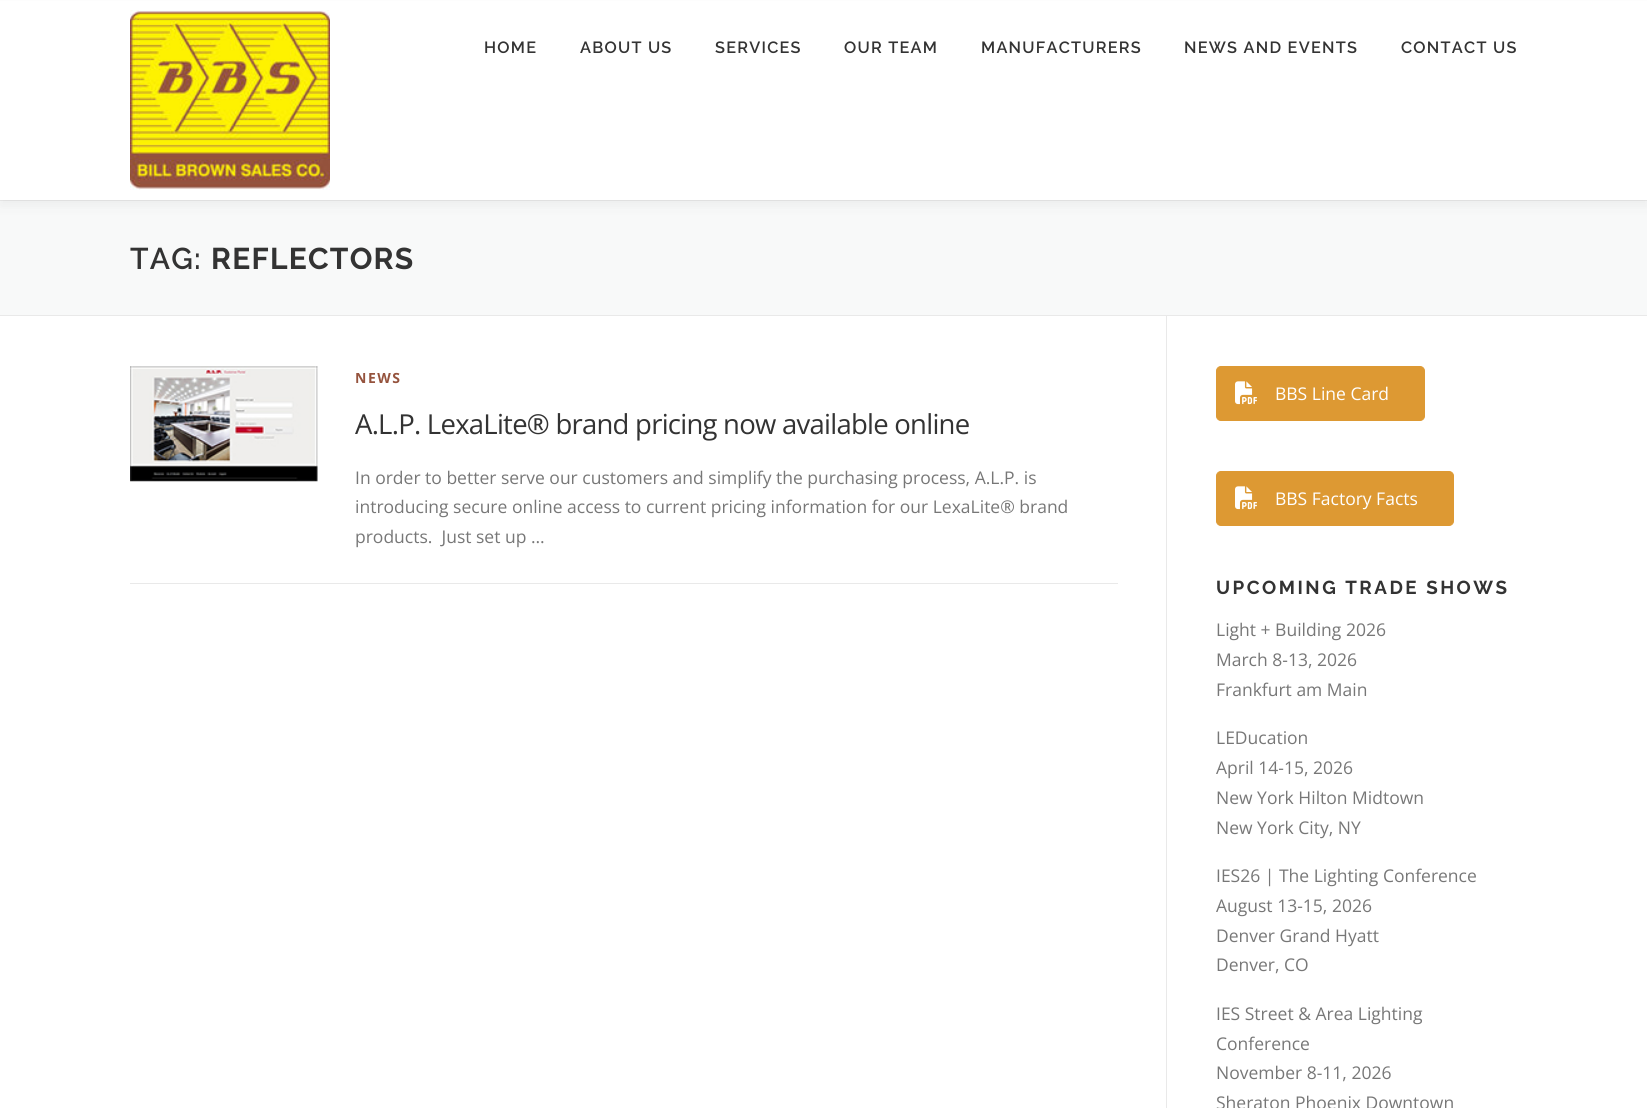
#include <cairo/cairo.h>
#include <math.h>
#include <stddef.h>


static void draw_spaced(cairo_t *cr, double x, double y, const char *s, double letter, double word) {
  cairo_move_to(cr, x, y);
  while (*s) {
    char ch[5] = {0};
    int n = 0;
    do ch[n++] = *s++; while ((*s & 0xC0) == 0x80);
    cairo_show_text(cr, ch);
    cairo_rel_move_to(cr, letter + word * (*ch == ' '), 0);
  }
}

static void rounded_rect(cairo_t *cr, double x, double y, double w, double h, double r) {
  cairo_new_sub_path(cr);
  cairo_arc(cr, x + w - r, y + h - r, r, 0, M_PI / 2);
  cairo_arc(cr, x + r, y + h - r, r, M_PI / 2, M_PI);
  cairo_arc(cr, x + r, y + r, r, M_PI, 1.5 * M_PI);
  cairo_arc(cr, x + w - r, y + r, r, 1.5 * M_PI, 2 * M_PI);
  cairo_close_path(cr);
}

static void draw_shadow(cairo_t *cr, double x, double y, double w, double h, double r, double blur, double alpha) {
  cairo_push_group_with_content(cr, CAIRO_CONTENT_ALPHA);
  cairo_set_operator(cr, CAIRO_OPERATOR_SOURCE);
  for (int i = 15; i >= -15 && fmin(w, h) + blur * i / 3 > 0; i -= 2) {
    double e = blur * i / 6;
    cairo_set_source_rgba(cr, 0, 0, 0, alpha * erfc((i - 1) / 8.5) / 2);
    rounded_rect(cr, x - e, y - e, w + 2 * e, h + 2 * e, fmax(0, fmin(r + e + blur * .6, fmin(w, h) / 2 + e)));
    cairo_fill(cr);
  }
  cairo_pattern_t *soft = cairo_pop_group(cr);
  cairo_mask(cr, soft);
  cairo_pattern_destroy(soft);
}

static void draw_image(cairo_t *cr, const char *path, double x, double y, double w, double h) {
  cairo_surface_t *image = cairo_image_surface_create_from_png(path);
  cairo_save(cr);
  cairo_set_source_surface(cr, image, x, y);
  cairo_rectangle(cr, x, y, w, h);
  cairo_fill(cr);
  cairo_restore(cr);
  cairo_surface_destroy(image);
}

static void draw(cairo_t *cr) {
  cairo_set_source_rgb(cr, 1, 1, 1);
  cairo_paint(cr);
  cairo_set_source_rgb(cr, 248 / 255.0, 249 / 255.0, 249 / 255.0);
  cairo_rectangle(cr, 0, 201, 1647, 114);
  cairo_fill(cr);
  cairo_set_source_rgb(cr, 233 / 255.0, 233 / 255.0, 233 / 255.0);
  cairo_rectangle(cr, 0, 200, 1647, 1);
  cairo_fill(cr);
  cairo_set_source_rgb(cr, 50 / 255.0, 50 / 255.0, 50 / 255.0);
  draw_shadow(cr, 0, 6, 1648, 200, 0, 6, 0.06);
  cairo_set_source_rgb(cr, 1, 1, 1);
  cairo_rectangle(cr, 0, 1, 1647, 199);
  cairo_fill(cr);
  draw_image(cr, "images/1.png", 130, 10, 200, 180);
  cairo_set_source_rgb(cr, 233 / 255.0, 233 / 255.0, 233 / 255.0);
  cairo_rectangle(cr, 0, 315, 1647, 1);
  cairo_fill(cr);
  cairo_rectangle(cr, 130, 583, 988, 1);
  cairo_fill(cr);
  draw_image(cr, "images/2.png", 130, 366, 188, 116);
  cairo_rectangle(cr, 1166, 316, 1, 792);
  cairo_fill(cr);
  cairo_set_source_rgb(cr, 221 / 255.0, 153 / 255.0, 51 / 255.0);
  rounded_rect(cr, 1216.5, 366.5, 208, 54, 4.5);
  cairo_fill_preserve(cr);
  cairo_set_line_width(cr, 1);
  cairo_stroke(cr);
  draw_image(cr, "images/3.png", 1235, 381, 22, 24);
  rounded_rect(cr, 1216.5, 471.5, 237, 54, 4.5);
  cairo_fill_preserve(cr);
  cairo_stroke(cr);
  draw_image(cr, "images/3.png", 1235, 486, 22, 24);
  cairo_select_font_face(cr, "Raleway SemiBold", CAIRO_FONT_SLANT_NORMAL, CAIRO_FONT_WEIGHT_NORMAL);
  cairo_set_font_size(cr, 16.25);
  cairo_set_source_rgb(cr, 51 / 255.0, 51 / 255.0, 51 / 255.0);
  draw_spaced(cr, 484, 53, "HOME", 1.25, 0);
  draw_spaced(cr, 580, 53, "ABOUT US", 1.25, 0);
  draw_spaced(cr, 715, 53, "SERVICES", 1.25, 0);
  draw_spaced(cr, 844, 53, "OUR TEAM", 1.25, 0);
  draw_spaced(cr, 981, 53, "MANUFACTURERS", 1.25, 0);
  draw_spaced(cr, 1184, 53, "NEWS AND EVENTS", 1.25, 0);
  draw_spaced(cr, 1401, 53, "CONTACT US", 1.25, 0);
  cairo_set_font_size(cr, 30);
  draw_spaced(cr, 130, 269, "TAG:", 1.25, 0);
  cairo_select_font_face(cr, "Raleway", CAIRO_FONT_SLANT_NORMAL, CAIRO_FONT_WEIGHT_BOLD);
  draw_spaced(cr, 211, 269, "REFLECTORS", 1.25, 0);
  cairo_select_font_face(cr, "Open Sans", CAIRO_FONT_SLANT_NORMAL, CAIRO_FONT_WEIGHT_BOLD);
  cairo_set_font_size(cr, 14);
  cairo_set_source_rgb(cr, 149 / 255.0, 83 / 255.0, 61 / 255.0);
  draw_spaced(cr, 355, 383, "NEWS", 1.5, 0);
  cairo_select_font_face(cr, "Open Sans", CAIRO_FONT_SLANT_NORMAL, CAIRO_FONT_WEIGHT_NORMAL);
  cairo_set_font_size(cr, 27.5);
  cairo_set_source_rgb(cr, 51 / 255.0, 51 / 255.0, 51 / 255.0);
  draw_spaced(cr, 355, 434, "A.L.P. LexaLite® brand pricing now available online", -0.75, 0);
  cairo_set_font_size(cr, 17.5);
  cairo_set_source_rgb(cr, 119 / 255.0, 119 / 255.0, 119 / 255.0);
  cairo_move_to(cr, 355, 484);
  cairo_show_text(cr, "In order to better serve our customers and simplify the purchasing process, A.L.P. is");
  cairo_move_to(cr, 355, 513);
  cairo_show_text(cr, "introducing secure online access to current pricing information for our LexaLite® brand");
  cairo_move_to(cr, 355, 543);
  cairo_show_text(cr, "products.  Just set up …");
  cairo_set_source_rgb(cr, 1, 1, 1);
  cairo_move_to(cr, 1275, 400);
  cairo_show_text(cr, "BBS Line Card");
  cairo_move_to(cr, 1275, 505);
  cairo_show_text(cr, "BBS Factory Facts");
  cairo_select_font_face(cr, "Raleway", CAIRO_FONT_SLANT_NORMAL, CAIRO_FONT_WEIGHT_BOLD);
  cairo_set_font_size(cr, 18.75);
  cairo_set_source_rgb(cr, 51 / 255.0, 51 / 255.0, 51 / 255.0);
  draw_spaced(cr, 1216, 594, "UPCOMING TRADE SHOWS", 2.5, 0);
  cairo_select_font_face(cr, "Open Sans", CAIRO_FONT_SLANT_NORMAL, CAIRO_FONT_WEIGHT_NORMAL);
  cairo_set_font_size(cr, 17.5);
  cairo_set_source_rgb(cr, 119 / 255.0, 119 / 255.0, 119 / 255.0);
  cairo_move_to(cr, 1216, 636);
  cairo_show_text(cr, "Light + Building 2026");
  cairo_move_to(cr, 1216, 666);
  cairo_show_text(cr, "March 8-13, 2026");
  cairo_move_to(cr, 1216, 696);
  cairo_show_text(cr, "Frankfurt am Main");
  cairo_move_to(cr, 1216, 744);
  cairo_show_text(cr, "LEDucation");
  cairo_move_to(cr, 1216, 774);
  cairo_show_text(cr, "April 14-15, 2026");
  cairo_move_to(cr, 1216, 804);
  cairo_show_text(cr, "New York Hilton Midtown");
  cairo_move_to(cr, 1216, 834);
  cairo_show_text(cr, "New York City, NY");
  cairo_move_to(cr, 1216, 882);
  cairo_show_text(cr, "IES26 | The Lighting Conference");
  cairo_move_to(cr, 1216, 912);
  cairo_show_text(cr, "August 13-15, 2026");
  cairo_move_to(cr, 1216, 942);
  cairo_show_text(cr, "Denver Grand Hyatt");
  cairo_move_to(cr, 1216, 971);
  cairo_show_text(cr, "Denver, CO");
  cairo_move_to(cr, 1216, 1020);
  cairo_show_text(cr, "IES Street & Area Lighting");
  cairo_move_to(cr, 1216, 1050);
  cairo_show_text(cr, "Conference");
  cairo_move_to(cr, 1216, 1079);
  cairo_show_text(cr, "November 8-11, 2026");
  cairo_move_to(cr, 1216, 1109);
  cairo_show_text(cr, "Sheraton Phoenix Downtown");
}

int main(void) {
  cairo_surface_t *surface = cairo_image_surface_create(CAIRO_FORMAT_RGB24, 1647, 1108);
  cairo_t *cr = cairo_create(surface);
  cairo_font_options_t *options = cairo_font_options_create();
  cairo_font_options_set_hint_metrics(options, CAIRO_HINT_METRICS_OFF);
  cairo_font_options_set_hint_style(options, CAIRO_HINT_STYLE_NONE);
  cairo_set_font_options(cr, options);
  cairo_set_miter_limit(cr, 4);
  draw(cr);
  cairo_surface_write_to_png(surface, "out.png");
  cairo_font_options_destroy(options);
  cairo_destroy(cr);
  cairo_surface_destroy(surface);
  return 0;
}
